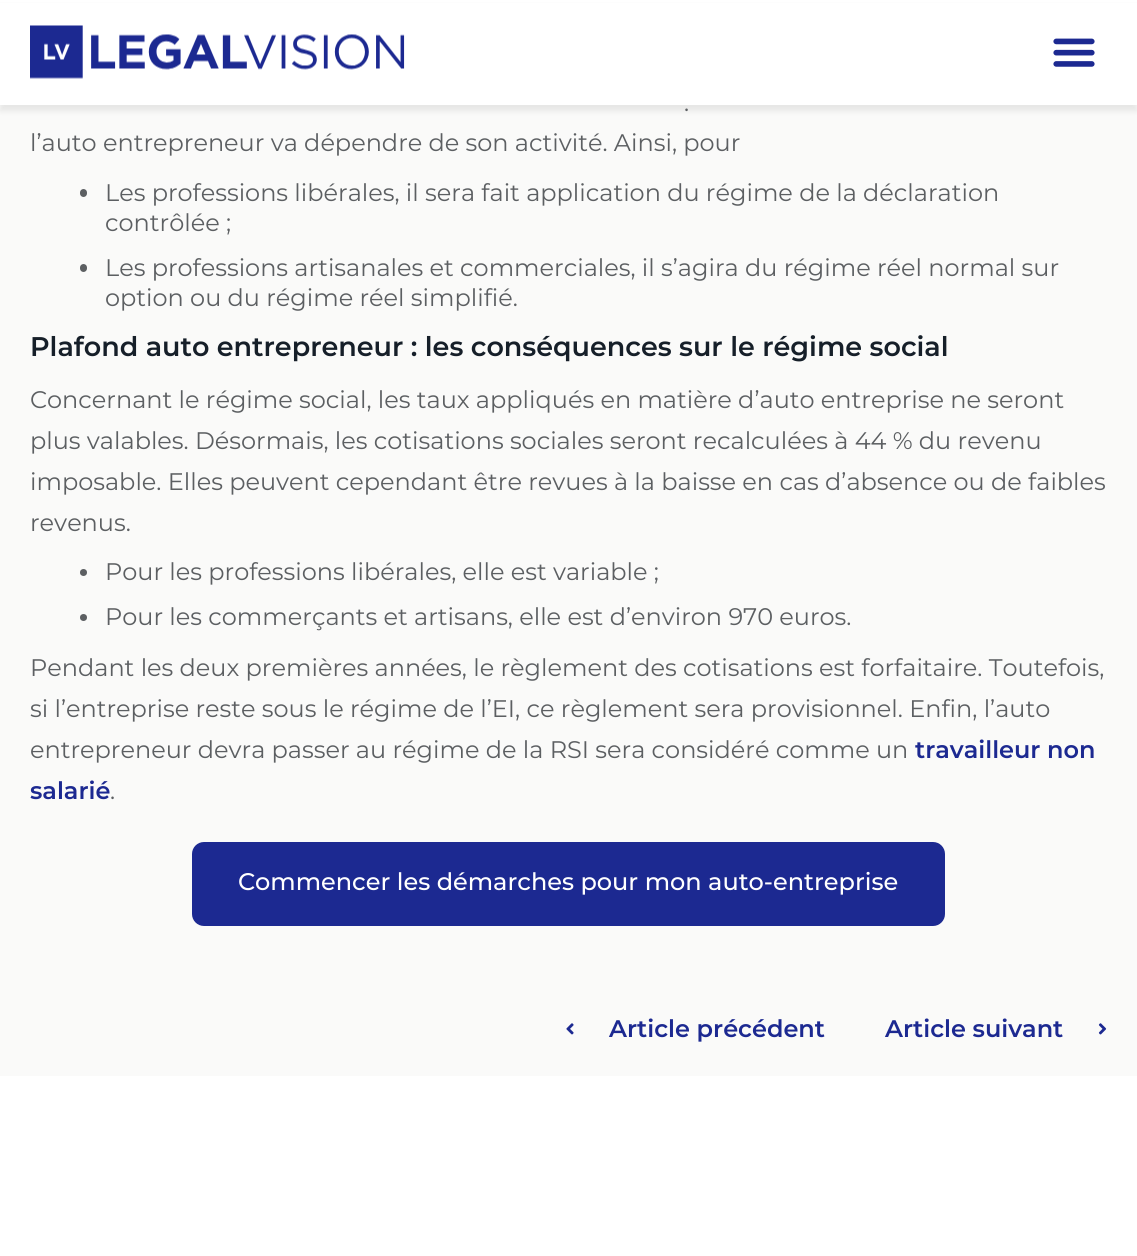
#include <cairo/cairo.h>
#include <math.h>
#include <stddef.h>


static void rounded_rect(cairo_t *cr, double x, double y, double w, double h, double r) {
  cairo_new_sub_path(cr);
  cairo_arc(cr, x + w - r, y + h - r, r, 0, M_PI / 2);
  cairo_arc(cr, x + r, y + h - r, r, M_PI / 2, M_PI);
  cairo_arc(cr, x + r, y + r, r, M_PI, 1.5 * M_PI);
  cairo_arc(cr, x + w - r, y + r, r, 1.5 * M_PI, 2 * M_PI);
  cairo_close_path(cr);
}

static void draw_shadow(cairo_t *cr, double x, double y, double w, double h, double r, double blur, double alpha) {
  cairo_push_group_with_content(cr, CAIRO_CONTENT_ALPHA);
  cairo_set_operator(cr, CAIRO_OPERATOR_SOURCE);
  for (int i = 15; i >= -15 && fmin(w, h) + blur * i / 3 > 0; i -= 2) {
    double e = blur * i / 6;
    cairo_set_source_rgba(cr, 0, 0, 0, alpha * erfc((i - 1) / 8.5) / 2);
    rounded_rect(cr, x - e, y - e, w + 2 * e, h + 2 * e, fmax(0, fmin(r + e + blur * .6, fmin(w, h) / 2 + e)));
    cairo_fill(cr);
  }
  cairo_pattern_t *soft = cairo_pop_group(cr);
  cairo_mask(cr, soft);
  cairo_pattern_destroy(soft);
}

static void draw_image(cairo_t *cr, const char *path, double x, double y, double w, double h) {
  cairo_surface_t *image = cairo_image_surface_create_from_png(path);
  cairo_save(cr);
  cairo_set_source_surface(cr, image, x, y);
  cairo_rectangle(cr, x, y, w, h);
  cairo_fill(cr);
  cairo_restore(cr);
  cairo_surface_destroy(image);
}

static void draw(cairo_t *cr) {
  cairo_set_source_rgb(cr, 1, 1, 1);
  cairo_paint(cr);
  cairo_set_source_rgb(cr, 250 / 255.0, 250 / 255.0, 249 / 255.0);
  cairo_rectangle(cr, 0, 105, 1137, 971);
  cairo_fill(cr);
  cairo_set_source_rgb(cr, 0, 0, 0);
  draw_shadow(cr, 0, 6, 1137, 105, 0, 3, 0.08);
  cairo_set_source_rgb(cr, 1, 1, 1);
  cairo_rectangle(cr, 0, 3, 1137, 102);
  cairo_fill(cr);
  draw_image(cr, "images/1.png", 30, 25, 375, 54);
  draw_image(cr, "images/2.png", 1053, 38, 42, 29);
  cairo_set_source_rgb(cr, 92 / 255.0, 95 / 255.0, 98 / 255.0);
  rounded_rect(cr, 80, 189, 7, 8, 3.5);
  cairo_fill(cr);
  rounded_rect(cr, 80, 264, 7, 8, 3.5);
  cairo_fill(cr);
  cairo_arc(cr, 83.5, 572.5, 3.5, 0, 2 * M_PI);
  cairo_fill(cr);
  cairo_arc(cr, 83.5, 617.5, 3.5, 0, 2 * M_PI);
  cairo_fill(cr);
  cairo_set_source_rgb(cr, 28 / 255.0, 41 / 255.0, 145 / 255.0);
  rounded_rect(cr, 193, 843, 751, 82, 11);
  cairo_fill_preserve(cr);
  cairo_stroke(cr);
  draw_image(cr, "images/3.png", 566, 1023, 8, 12);
  draw_image(cr, "images/4.png", 1098, 1023, 9, 12);
  cairo_select_font_face(cr, "Montserrat", CAIRO_FONT_SLANT_NORMAL, CAIRO_FONT_WEIGHT_NORMAL);
  cairo_set_font_size(cr, 24);
  cairo_set_source_rgb(cr, 92 / 255.0, 95 / 255.0, 98 / 255.0);
  cairo_move_to(cr, 684, 111);
  cairo_show_text(cr, ".");
  cairo_move_to(cr, 30, 151);
  cairo_show_text(cr, "l’auto entrepreneur va dépendre de son activité. Ainsi, pour");
  cairo_move_to(cr, 105, 201);
  cairo_show_text(cr, "Les professions libérales, il sera fait application du régime de la déclaration");
  cairo_move_to(cr, 105, 231);
  cairo_show_text(cr, "contrôlée ;");
  cairo_move_to(cr, 105, 276);
  cairo_show_text(cr, "Les professions artisanales et commerciales, il s’agira du régime réel normal sur");
  cairo_move_to(cr, 105, 306);
  cairo_show_text(cr, "option ou du régime réel simplifié.");
  cairo_select_font_face(cr, "Montserrat SemiBold", CAIRO_FONT_SLANT_NORMAL, CAIRO_FONT_WEIGHT_NORMAL);
  cairo_set_font_size(cr, 27);
  cairo_set_source_rgb(cr, 22 / 255.0, 31 / 255.0, 41 / 255.0);
  cairo_move_to(cr, 30, 356);
  cairo_show_text(cr, "Plafond auto entrepreneur : les conséquences sur le régime social");
  cairo_select_font_face(cr, "Montserrat", CAIRO_FONT_SLANT_NORMAL, CAIRO_FONT_WEIGHT_NORMAL);
  cairo_set_font_size(cr, 24);
  cairo_set_source_rgb(cr, 92 / 255.0, 95 / 255.0, 98 / 255.0);
  cairo_move_to(cr, 30, 408);
  cairo_show_text(cr, "Concernant le régime social, les taux appliqués en matière d’auto entreprise ne seront");
  cairo_move_to(cr, 30, 449);
  cairo_show_text(cr, "plus valables. Désormais, les cotisations sociales seront recalculées à 44 % du revenu");
  cairo_move_to(cr, 30, 490);
  cairo_show_text(cr, "imposable. Elles peuvent cependant être revues à la baisse en cas d’absence ou de faibles");
  cairo_move_to(cr, 30, 531);
  cairo_show_text(cr, "revenus.");
  cairo_move_to(cr, 105, 580);
  cairo_show_text(cr, "Pour les professions libérales, elle est variable ;");
  cairo_move_to(cr, 105, 625);
  cairo_show_text(cr, "Pour les commerçants et artisans, elle est d’environ 970 euros.");
  cairo_move_to(cr, 30, 676);
  cairo_show_text(cr, "Pendant les deux premières années, le règlement des cotisations est forfaitaire. Toutefois,");
  cairo_move_to(cr, 30, 717);
  cairo_show_text(cr, "si l’entreprise reste sous le régime de l’EI, ce règlement sera provisionnel. Enfin, l’auto");
  cairo_move_to(cr, 30, 758);
  cairo_show_text(cr, "entrepreneur devra passer au régime de la RSI sera considéré comme un");
  cairo_select_font_face(cr, "Montserrat SemiBold", CAIRO_FONT_SLANT_NORMAL, CAIRO_FONT_WEIGHT_NORMAL);
  cairo_set_source_rgb(cr, 28 / 255.0, 41 / 255.0, 145 / 255.0);
  cairo_move_to(cr, 915, 758);
  cairo_show_text(cr, "travailleur non");
  cairo_move_to(cr, 30, 799);
  cairo_show_text(cr, "salarié");
  cairo_select_font_face(cr, "Montserrat", CAIRO_FONT_SLANT_NORMAL, CAIRO_FONT_WEIGHT_NORMAL);
  cairo_set_source_rgb(cr, 92 / 255.0, 95 / 255.0, 98 / 255.0);
  cairo_move_to(cr, 110, 799);
  cairo_show_text(cr, ".");
  cairo_select_font_face(cr, "Montserrat Medium", CAIRO_FONT_SLANT_NORMAL, CAIRO_FONT_WEIGHT_NORMAL);
  cairo_set_source_rgb(cr, 1, 1, 1);
  cairo_move_to(cr, 238, 890);
  cairo_show_text(cr, "Commencer les démarches pour mon auto-entreprise");
  cairo_select_font_face(cr, "Montserrat SemiBold", CAIRO_FONT_SLANT_NORMAL, CAIRO_FONT_WEIGHT_NORMAL);
  cairo_set_source_rgb(cr, 28 / 255.0, 41 / 255.0, 145 / 255.0);
  cairo_move_to(cr, 609, 1037);
  cairo_show_text(cr, "Article précédent");
  cairo_move_to(cr, 885, 1037);
  cairo_show_text(cr, "Article suivant");
}

int main(void) {
  cairo_surface_t *surface = cairo_image_surface_create(CAIRO_FORMAT_RGB24, 1137, 1256);
  cairo_t *cr = cairo_create(surface);
  cairo_font_options_t *options = cairo_font_options_create();
  cairo_font_options_set_hint_metrics(options, CAIRO_HINT_METRICS_OFF);
  cairo_font_options_set_hint_style(options, CAIRO_HINT_STYLE_NONE);
  cairo_set_font_options(cr, options);
  cairo_set_miter_limit(cr, 4);
  draw(cr);
  cairo_surface_write_to_png(surface, "out.png");
  cairo_font_options_destroy(options);
  cairo_destroy(cr);
  cairo_surface_destroy(surface);
  return 0;
}
